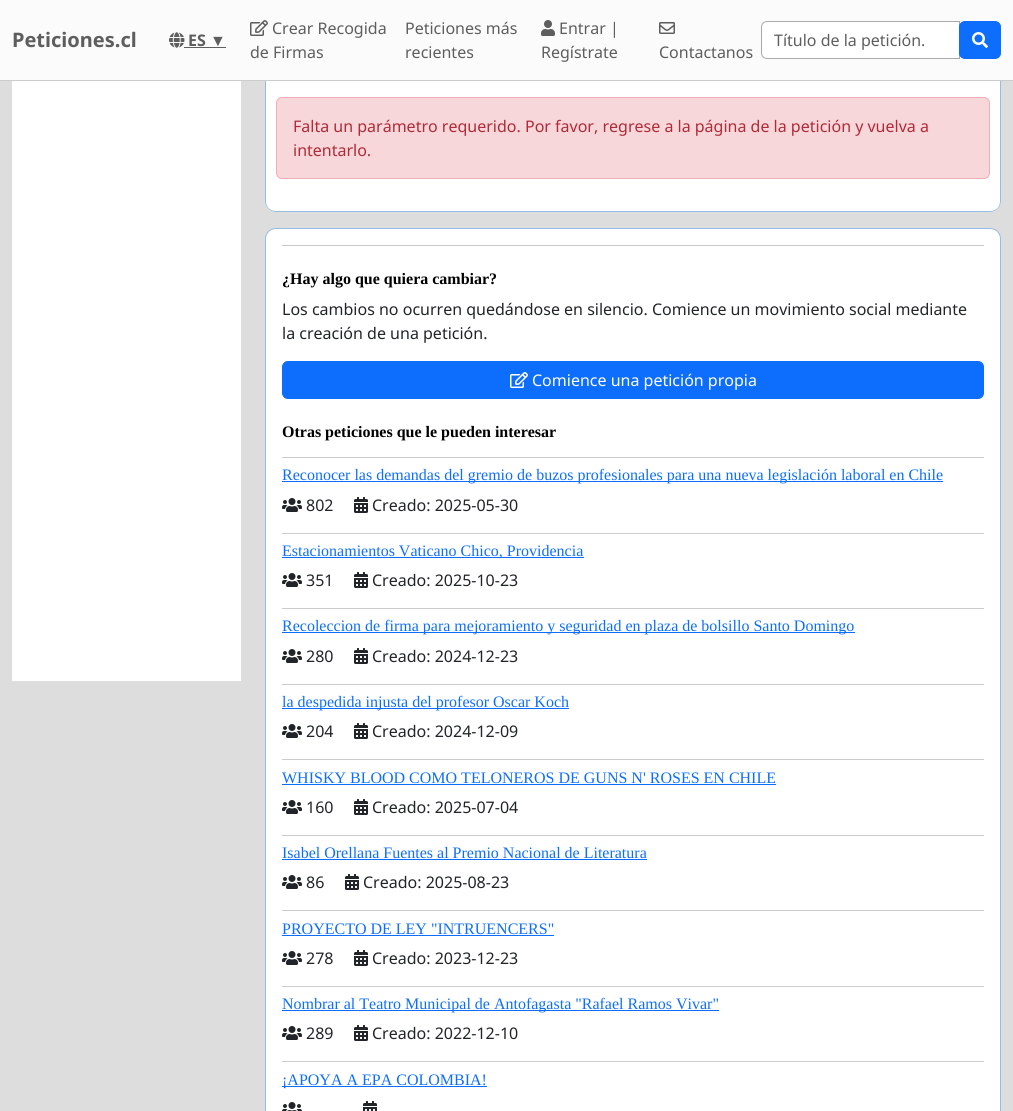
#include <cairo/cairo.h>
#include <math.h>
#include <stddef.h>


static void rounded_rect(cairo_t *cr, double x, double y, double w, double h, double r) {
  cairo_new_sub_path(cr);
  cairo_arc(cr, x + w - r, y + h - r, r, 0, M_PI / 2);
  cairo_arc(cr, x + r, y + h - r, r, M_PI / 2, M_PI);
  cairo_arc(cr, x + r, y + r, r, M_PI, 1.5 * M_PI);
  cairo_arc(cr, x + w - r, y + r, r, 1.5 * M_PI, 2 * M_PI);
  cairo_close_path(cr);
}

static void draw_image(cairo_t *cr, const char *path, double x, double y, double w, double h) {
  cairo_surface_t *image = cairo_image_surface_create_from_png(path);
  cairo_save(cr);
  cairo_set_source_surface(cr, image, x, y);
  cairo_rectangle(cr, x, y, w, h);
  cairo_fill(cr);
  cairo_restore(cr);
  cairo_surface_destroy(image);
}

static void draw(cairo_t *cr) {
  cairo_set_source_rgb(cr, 221 / 255.0, 221 / 255.0, 221 / 255.0);
  cairo_paint(cr);
  cairo_set_source_rgb(cr, 251 / 255.0, 251 / 255.0, 251 / 255.0);
  cairo_rectangle(cr, 0, 0, 1013, 80);
  cairo_fill(cr);
  cairo_set_source_rgb(cr, 204 / 255.0, 204 / 255.0, 204 / 255.0);
  cairo_rectangle(cr, 0, 80, 1013, 1);
  cairo_fill(cr);
  draw_image(cr, "images/1.png", 169, 32, 16, 16);
  cairo_set_source_rgb(cr, 94 / 255.0, 94 / 255.0, 94 / 255.0);
  cairo_rectangle(cr, 184, 47, 42, 1);
  cairo_fill(cr);
  draw_image(cr, "images/2.png", 250, 20, 18, 16);
  draw_image(cr, "images/3.png", 541, 20, 14, 16);
  draw_image(cr, "images/4.png", 659, 22, 16, 12);
  cairo_set_source_rgb(cr, 1, 1, 1);
  cairo_new_path(cr);
  cairo_move_to(cr, 767, 21.5);
  cairo_line_to(cr, 959.5, 21.5);
  cairo_line_to(cr, 959.5, 58.5);
  cairo_line_to(cr, 767, 58.5);
  cairo_curve_to(cr, 764, 58.5, 761.5, 56, 761.5, 53);
  cairo_line_to(cr, 761.5, 27);
  cairo_curve_to(cr, 761.5, 24, 764, 21.5, 767, 21.5);
  cairo_close_path(cr);
  cairo_fill_preserve(cr);
  cairo_set_source_rgb(cr, 169 / 255.0, 169 / 255.0, 169 / 255.0);
  cairo_set_line_width(cr, 1);
  cairo_stroke(cr);
  cairo_set_source_rgb(cr, 13 / 255.0, 110 / 255.0, 253 / 255.0);
  rounded_rect(cr, 959.5, 21.5, 41, 37, 5.5);
  cairo_fill_preserve(cr);
  cairo_stroke(cr);
  draw_image(cr, "images/5.png", 972, 32, 16, 16);
  cairo_set_source_rgb(cr, 1, 1, 1);
  cairo_rectangle(cr, 12, 81, 229, 600);
  cairo_fill(cr);
  cairo_new_path(cr);
  cairo_move_to(cr, 265, 81);
  cairo_line_to(cr, 1001, 81);
  cairo_line_to(cr, 1001, 201);
  cairo_curve_to(cr, 1001, 207, 996, 212, 990, 212);
  cairo_line_to(cr, 276, 212);
  cairo_curve_to(cr, 270, 212, 265, 207, 265, 201);
  cairo_close_path(cr);
  cairo_fill(cr);
  cairo_set_source_rgb(cr, 149 / 255.0, 188 / 255.0, 226 / 255.0);
  cairo_set_fill_rule(cr, CAIRO_FILL_RULE_EVEN_ODD);
  cairo_new_path(cr);
  cairo_move_to(cr, 265, 81);
  cairo_line_to(cr, 1001, 81);
  cairo_line_to(cr, 1001, 201);
  cairo_curve_to(cr, 1001, 207, 996, 212, 990, 212);
  cairo_line_to(cr, 276, 212);
  cairo_curve_to(cr, 270, 212, 265, 207, 265, 201);
  cairo_close_path(cr);
  cairo_move_to(cr, 266, 81);
  cairo_line_to(cr, 1000, 81);
  cairo_line_to(cr, 1000, 201);
  cairo_curve_to(cr, 1000, 207, 996, 211, 990, 211);
  cairo_line_to(cr, 276, 211);
  cairo_curve_to(cr, 270, 211, 266, 207, 266, 201);
  cairo_close_path(cr);
  cairo_fill(cr);
  cairo_set_source_rgb(cr, 248 / 255.0, 215 / 255.0, 218 / 255.0);
  rounded_rect(cr, 276.5, 97.5, 713, 81, 5.5);
  cairo_fill_preserve(cr);
  cairo_set_source_rgb(cr, 241 / 255.0, 174 / 255.0, 181 / 255.0);
  cairo_stroke(cr);
  cairo_set_source_rgb(cr, 1, 1, 1);
  cairo_new_path(cr);
  cairo_move_to(cr, 276, 228.5);
  cairo_line_to(cr, 990, 228.5);
  cairo_curve_to(cr, 996, 228.5, 1000.5, 233, 1000.5, 239);
  cairo_line_to(cr, 1000.5, 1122.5);
  cairo_line_to(cr, 265.5, 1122.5);
  cairo_line_to(cr, 265.5, 239);
  cairo_curve_to(cr, 265.5, 233, 270, 228.5, 276, 228.5);
  cairo_close_path(cr);
  cairo_fill_preserve(cr);
  cairo_set_source_rgb(cr, 149 / 255.0, 188 / 255.0, 226 / 255.0);
  cairo_stroke(cr);
  cairo_set_source_rgb(cr, 200 / 255.0, 201 / 255.0, 202 / 255.0);
  cairo_rectangle(cr, 282, 245, 702, 1);
  cairo_fill(cr);
  cairo_set_source_rgb(cr, 13 / 255.0, 110 / 255.0, 253 / 255.0);
  rounded_rect(cr, 282.5, 361.5, 701, 37, 5.5);
  cairo_fill_preserve(cr);
  cairo_stroke(cr);
  draw_image(cr, "images/6.png", 510, 372, 18, 16);
  cairo_set_source_rgb(cr, 204 / 255.0, 204 / 255.0, 204 / 255.0);
  cairo_rectangle(cr, 282, 457, 702, 1);
  cairo_fill(cr);
  cairo_set_source_rgb(cr, 13 / 255.0, 110 / 255.0, 253 / 255.0);
  cairo_rectangle(cr, 282, 481, 661, 1);
  cairo_fill(cr);
  draw_image(cr, "images/7.png", 282, 498, 20, 14);
  draw_image(cr, "images/8.png", 354, 497, 14, 16);
  cairo_set_source_rgb(cr, 204 / 255.0, 204 / 255.0, 204 / 255.0);
  cairo_rectangle(cr, 282, 533, 702, 1);
  cairo_fill(cr);
  cairo_set_source_rgb(cr, 13 / 255.0, 110 / 255.0, 253 / 255.0);
  cairo_rectangle(cr, 282, 557, 302, 1);
  cairo_fill(cr);
  draw_image(cr, "images/7.png", 282, 573, 20, 14);
  draw_image(cr, "images/8.png", 354, 572, 14, 16);
  cairo_set_source_rgb(cr, 204 / 255.0, 204 / 255.0, 204 / 255.0);
  cairo_rectangle(cr, 282, 608, 702, 1);
  cairo_fill(cr);
  cairo_set_source_rgb(cr, 13 / 255.0, 110 / 255.0, 253 / 255.0);
  cairo_rectangle(cr, 282, 632, 573, 1);
  cairo_fill(cr);
  draw_image(cr, "images/7.png", 282, 649, 20, 14);
  draw_image(cr, "images/8.png", 354, 648, 14, 16);
  cairo_set_source_rgb(cr, 204 / 255.0, 204 / 255.0, 204 / 255.0);
  cairo_rectangle(cr, 282, 684, 702, 1);
  cairo_fill(cr);
  cairo_set_source_rgb(cr, 13 / 255.0, 110 / 255.0, 253 / 255.0);
  cairo_rectangle(cr, 282, 708, 287, 1);
  cairo_fill(cr);
  draw_image(cr, "images/7.png", 282, 724, 20, 14);
  draw_image(cr, "images/8.png", 354, 723, 14, 16);
  cairo_set_source_rgb(cr, 204 / 255.0, 204 / 255.0, 204 / 255.0);
  cairo_rectangle(cr, 282, 759, 702, 1);
  cairo_fill(cr);
  cairo_set_source_rgb(cr, 13 / 255.0, 110 / 255.0, 253 / 255.0);
  cairo_rectangle(cr, 282, 784, 494, 1);
  cairo_fill(cr);
  draw_image(cr, "images/7.png", 282, 800, 20, 14);
  draw_image(cr, "images/8.png", 354, 799, 14, 16);
  cairo_set_source_rgb(cr, 204 / 255.0, 204 / 255.0, 204 / 255.0);
  cairo_rectangle(cr, 282, 835, 702, 1);
  cairo_fill(cr);
  cairo_set_source_rgb(cr, 13 / 255.0, 110 / 255.0, 253 / 255.0);
  cairo_rectangle(cr, 282, 859, 365, 1);
  cairo_fill(cr);
  draw_image(cr, "images/7.png", 282, 875, 20, 14);
  draw_image(cr, "images/8.png", 345, 874, 14, 16);
  cairo_set_source_rgb(cr, 204 / 255.0, 204 / 255.0, 204 / 255.0);
  cairo_rectangle(cr, 282, 910, 702, 1);
  cairo_fill(cr);
  cairo_set_source_rgb(cr, 13 / 255.0, 110 / 255.0, 253 / 255.0);
  cairo_rectangle(cr, 282, 935, 272, 1);
  cairo_fill(cr);
  draw_image(cr, "images/7.png", 282, 951, 20, 14);
  draw_image(cr, "images/8.png", 354, 950, 14, 16);
  cairo_set_source_rgb(cr, 204 / 255.0, 204 / 255.0, 204 / 255.0);
  cairo_rectangle(cr, 282, 986, 702, 1);
  cairo_fill(cr);
  cairo_set_source_rgb(cr, 13 / 255.0, 110 / 255.0, 253 / 255.0);
  cairo_rectangle(cr, 282, 1010, 437, 1);
  cairo_fill(cr);
  draw_image(cr, "images/7.png", 282, 1026, 20, 14);
  draw_image(cr, "images/8.png", 354, 1025, 14, 16);
  cairo_set_source_rgb(cr, 204 / 255.0, 204 / 255.0, 204 / 255.0);
  cairo_rectangle(cr, 282, 1061, 702, 1);
  cairo_fill(cr);
  cairo_set_source_rgb(cr, 13 / 255.0, 110 / 255.0, 253 / 255.0);
  cairo_rectangle(cr, 282, 1086, 205, 1);
  cairo_fill(cr);
  draw_image(cr, "images/9.png", 282, 1102, 20, 9);
  draw_image(cr, "images/10.png", 363, 1101, 14, 10);
  cairo_select_font_face(cr, "Noto Sans", CAIRO_FONT_SLANT_NORMAL, CAIRO_FONT_WEIGHT_BOLD);
  cairo_set_font_size(cr, 20);
  cairo_set_source_rgb(cr, 94 / 255.0, 94 / 255.0, 94 / 255.0);
  cairo_move_to(cr, 12, 47);
  cairo_show_text(cr, "Peticiones.cl");
  cairo_set_font_size(cr, 16);
  cairo_move_to(cr, 188, 46);
  cairo_show_text(cr, "ES");
  cairo_select_font_face(cr, "Liberation Sans", CAIRO_FONT_SLANT_NORMAL, CAIRO_FONT_WEIGHT_NORMAL);
  cairo_move_to(cr, 210, 46);
  cairo_show_text(cr, "▼");
  cairo_select_font_face(cr, "Noto Sans", CAIRO_FONT_SLANT_NORMAL, CAIRO_FONT_WEIGHT_NORMAL);
  cairo_move_to(cr, 272, 34);
  cairo_show_text(cr, "Crear Recogida");
  cairo_move_to(cr, 250, 58);
  cairo_show_text(cr, "de Firmas");
  cairo_move_to(cr, 405, 34);
  cairo_show_text(cr, "Peticiones más");
  cairo_move_to(cr, 405, 58);
  cairo_show_text(cr, "recientes");
  cairo_move_to(cr, 559, 34);
  cairo_show_text(cr, "Entrar |");
  cairo_move_to(cr, 541, 58);
  cairo_show_text(cr, "Regístrate");
  cairo_move_to(cr, 659, 58);
  cairo_show_text(cr, "Contactanos");
  cairo_move_to(cr, 774, 46);
  cairo_show_text(cr, "Título de la petición.");
  cairo_set_source_rgb(cr, 176 / 255.0, 42 / 255.0, 55 / 255.0);
  cairo_move_to(cr, 293, 132);
  cairo_show_text(cr, "Falta un parámetro requerido. Por favor, regrese a la página de la petición y vuelva a");
  cairo_move_to(cr, 293, 156);
  cairo_show_text(cr, "intentarlo.");
  cairo_select_font_face(cr, "Liberation Serif", CAIRO_FONT_SLANT_NORMAL, CAIRO_FONT_WEIGHT_BOLD);
  cairo_set_source_rgb(cr, 0, 0, 0);
  cairo_move_to(cr, 282, 284);
  cairo_show_text(cr, "¿Hay algo que quiera cambiar?");
  cairo_select_font_face(cr, "Noto Sans", CAIRO_FONT_SLANT_NORMAL, CAIRO_FONT_WEIGHT_NORMAL);
  cairo_set_source_rgb(cr, 33 / 255.0, 37 / 255.0, 41 / 255.0);
  cairo_move_to(cr, 282, 315);
  cairo_show_text(cr, "Los cambios no ocurren quedándose en silencio. Comience un movimiento social mediante");
  cairo_move_to(cr, 282, 339);
  cairo_show_text(cr, "la creación de una petición.");
  cairo_set_source_rgb(cr, 1, 1, 1);
  cairo_move_to(cr, 532, 386);
  cairo_show_text(cr, "Comience una petición propia");
  cairo_select_font_face(cr, "Liberation Serif", CAIRO_FONT_SLANT_NORMAL, CAIRO_FONT_WEIGHT_BOLD);
  cairo_set_source_rgb(cr, 0, 0, 0);
  cairo_move_to(cr, 282, 437);
  cairo_show_text(cr, "Otras peticiones que le pueden interesar");
  cairo_select_font_face(cr, "Liberation Serif", CAIRO_FONT_SLANT_NORMAL, CAIRO_FONT_WEIGHT_NORMAL);
  cairo_set_source_rgb(cr, 13 / 255.0, 110 / 255.0, 253 / 255.0);
  cairo_move_to(cr, 282, 480);
  cairo_show_text(cr, "Reconocer las demandas del gremio de buzos profesionales para una nueva legislación laboral en Chile");
  cairo_select_font_face(cr, "Noto Sans", CAIRO_FONT_SLANT_NORMAL, CAIRO_FONT_WEIGHT_NORMAL);
  cairo_set_source_rgb(cr, 33 / 255.0, 37 / 255.0, 41 / 255.0);
  cairo_move_to(cr, 306, 511);
  cairo_show_text(cr, "802");
  cairo_move_to(cr, 372, 511);
  cairo_show_text(cr, "Creado: 2025-05-30");
  cairo_select_font_face(cr, "Liberation Serif", CAIRO_FONT_SLANT_NORMAL, CAIRO_FONT_WEIGHT_NORMAL);
  cairo_set_source_rgb(cr, 13 / 255.0, 110 / 255.0, 253 / 255.0);
  cairo_move_to(cr, 282, 556);
  cairo_show_text(cr, "Estacionamientos Vaticano Chico, Providencia");
  cairo_select_font_face(cr, "Noto Sans", CAIRO_FONT_SLANT_NORMAL, CAIRO_FONT_WEIGHT_NORMAL);
  cairo_set_source_rgb(cr, 33 / 255.0, 37 / 255.0, 41 / 255.0);
  cairo_move_to(cr, 306, 586);
  cairo_show_text(cr, "351");
  cairo_move_to(cr, 372, 586);
  cairo_show_text(cr, "Creado: 2025-10-23");
  cairo_select_font_face(cr, "Liberation Serif", CAIRO_FONT_SLANT_NORMAL, CAIRO_FONT_WEIGHT_NORMAL);
  cairo_set_source_rgb(cr, 13 / 255.0, 110 / 255.0, 253 / 255.0);
  cairo_move_to(cr, 282, 631);
  cairo_show_text(cr, "Recoleccion de firma para mejoramiento y seguridad en plaza de bolsillo Santo Domingo");
  cairo_select_font_face(cr, "Noto Sans", CAIRO_FONT_SLANT_NORMAL, CAIRO_FONT_WEIGHT_NORMAL);
  cairo_set_source_rgb(cr, 33 / 255.0, 37 / 255.0, 41 / 255.0);
  cairo_move_to(cr, 306, 662);
  cairo_show_text(cr, "280");
  cairo_move_to(cr, 372, 662);
  cairo_show_text(cr, "Creado: 2024-12-23");
  cairo_select_font_face(cr, "Liberation Serif", CAIRO_FONT_SLANT_NORMAL, CAIRO_FONT_WEIGHT_NORMAL);
  cairo_set_source_rgb(cr, 13 / 255.0, 110 / 255.0, 253 / 255.0);
  cairo_move_to(cr, 282, 707);
  cairo_show_text(cr, "la despedida injusta del profesor Oscar Koch");
  cairo_select_font_face(cr, "Noto Sans", CAIRO_FONT_SLANT_NORMAL, CAIRO_FONT_WEIGHT_NORMAL);
  cairo_set_source_rgb(cr, 33 / 255.0, 37 / 255.0, 41 / 255.0);
  cairo_move_to(cr, 306, 737);
  cairo_show_text(cr, "204");
  cairo_move_to(cr, 372, 737);
  cairo_show_text(cr, "Creado: 2024-12-09");
  cairo_select_font_face(cr, "Liberation Serif", CAIRO_FONT_SLANT_NORMAL, CAIRO_FONT_WEIGHT_NORMAL);
  cairo_set_source_rgb(cr, 13 / 255.0, 110 / 255.0, 253 / 255.0);
  cairo_move_to(cr, 282, 783);
  cairo_show_text(cr, "WHISKY BLOOD COMO TELONEROS DE GUNS N' ROSES EN CHILE");
  cairo_select_font_face(cr, "Noto Sans", CAIRO_FONT_SLANT_NORMAL, CAIRO_FONT_WEIGHT_NORMAL);
  cairo_set_source_rgb(cr, 33 / 255.0, 37 / 255.0, 41 / 255.0);
  cairo_move_to(cr, 306, 813);
  cairo_show_text(cr, "160");
  cairo_move_to(cr, 372, 813);
  cairo_show_text(cr, "Creado: 2025-07-04");
  cairo_select_font_face(cr, "Liberation Serif", CAIRO_FONT_SLANT_NORMAL, CAIRO_FONT_WEIGHT_NORMAL);
  cairo_set_source_rgb(cr, 13 / 255.0, 110 / 255.0, 253 / 255.0);
  cairo_move_to(cr, 282, 858);
  cairo_show_text(cr, "Isabel Orellana Fuentes al Premio Nacional de Literatura");
  cairo_select_font_face(cr, "Noto Sans", CAIRO_FONT_SLANT_NORMAL, CAIRO_FONT_WEIGHT_NORMAL);
  cairo_set_source_rgb(cr, 33 / 255.0, 37 / 255.0, 41 / 255.0);
  cairo_move_to(cr, 306, 888);
  cairo_show_text(cr, "86");
  cairo_move_to(cr, 363, 888);
  cairo_show_text(cr, "Creado: 2025-08-23");
  cairo_select_font_face(cr, "Liberation Serif", CAIRO_FONT_SLANT_NORMAL, CAIRO_FONT_WEIGHT_NORMAL);
  cairo_set_source_rgb(cr, 13 / 255.0, 110 / 255.0, 253 / 255.0);
  cairo_move_to(cr, 282, 934);
  cairo_show_text(cr, "PROYECTO DE LEY \"INTRUENCERS\"");
  cairo_select_font_face(cr, "Noto Sans", CAIRO_FONT_SLANT_NORMAL, CAIRO_FONT_WEIGHT_NORMAL);
  cairo_set_source_rgb(cr, 33 / 255.0, 37 / 255.0, 41 / 255.0);
  cairo_move_to(cr, 306, 964);
  cairo_show_text(cr, "278");
  cairo_move_to(cr, 372, 964);
  cairo_show_text(cr, "Creado: 2023-12-23");
  cairo_select_font_face(cr, "Liberation Serif", CAIRO_FONT_SLANT_NORMAL, CAIRO_FONT_WEIGHT_NORMAL);
  cairo_set_source_rgb(cr, 13 / 255.0, 110 / 255.0, 253 / 255.0);
  cairo_move_to(cr, 282, 1009);
  cairo_show_text(cr, "Nombrar al Teatro Municipal de Antofagasta \"Rafael Ramos Vivar\"");
  cairo_select_font_face(cr, "Noto Sans", CAIRO_FONT_SLANT_NORMAL, CAIRO_FONT_WEIGHT_NORMAL);
  cairo_set_source_rgb(cr, 33 / 255.0, 37 / 255.0, 41 / 255.0);
  cairo_move_to(cr, 306, 1039);
  cairo_show_text(cr, "289");
  cairo_move_to(cr, 372, 1039);
  cairo_show_text(cr, "Creado: 2022-12-10");
  cairo_select_font_face(cr, "Liberation Serif", CAIRO_FONT_SLANT_NORMAL, CAIRO_FONT_WEIGHT_NORMAL);
  cairo_set_source_rgb(cr, 13 / 255.0, 110 / 255.0, 253 / 255.0);
  cairo_move_to(cr, 282, 1085);
  cairo_show_text(cr, "¡APOYA A EPA COLOMBIA!");
}

int main(void) {
  cairo_surface_t *surface = cairo_image_surface_create(CAIRO_FORMAT_RGB24, 1013, 1111);
  cairo_t *cr = cairo_create(surface);
  cairo_font_options_t *options = cairo_font_options_create();
  cairo_font_options_set_hint_metrics(options, CAIRO_HINT_METRICS_OFF);
  cairo_font_options_set_hint_style(options, CAIRO_HINT_STYLE_NONE);
  cairo_set_font_options(cr, options);
  cairo_set_miter_limit(cr, 4);
  draw(cr);
  cairo_surface_write_to_png(surface, "out.png");
  cairo_font_options_destroy(options);
  cairo_destroy(cr);
  cairo_surface_destroy(surface);
  return 0;
}
